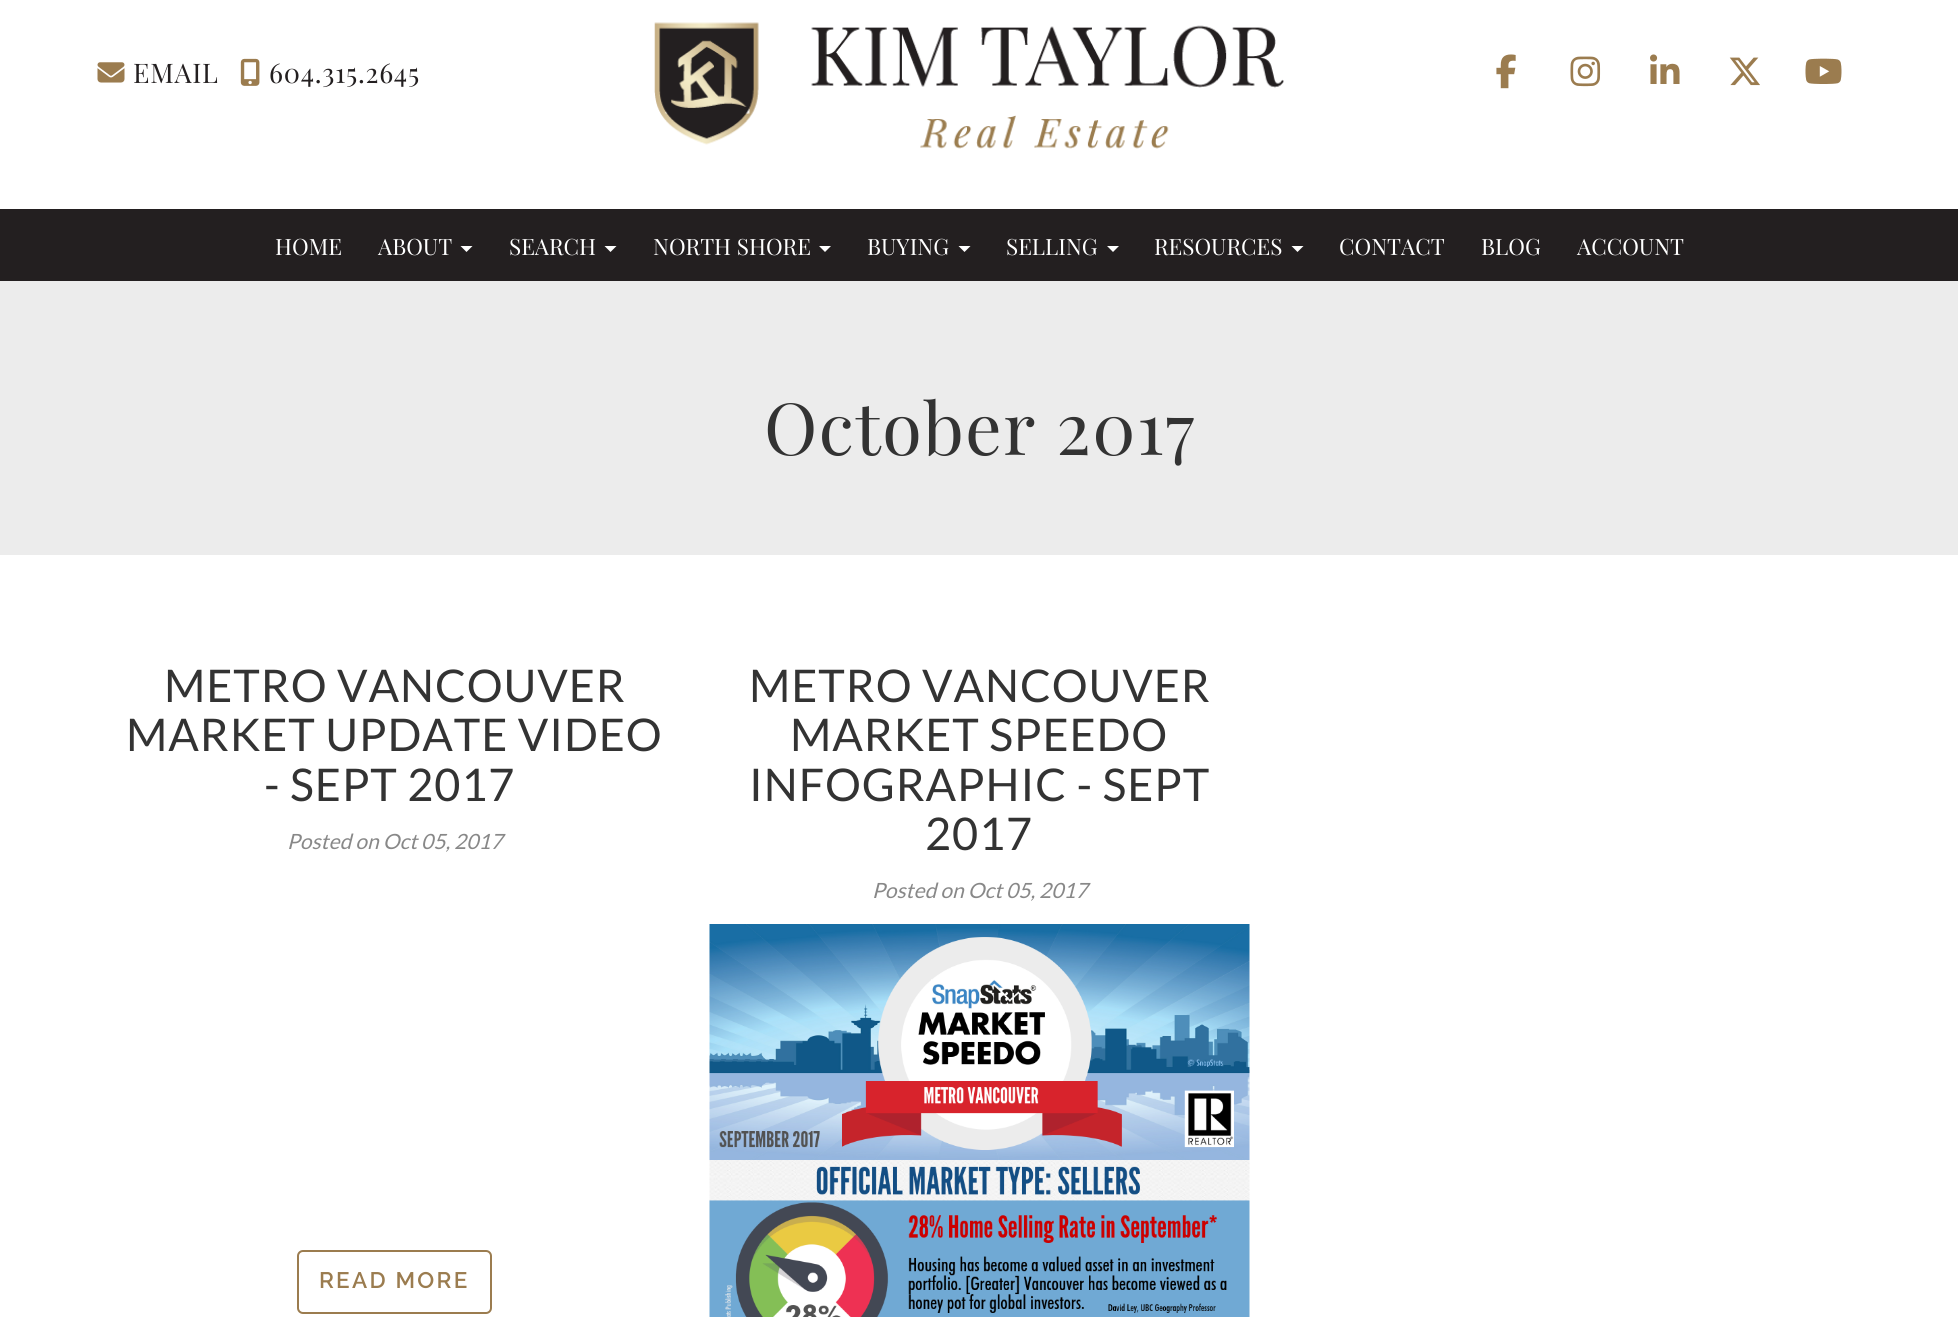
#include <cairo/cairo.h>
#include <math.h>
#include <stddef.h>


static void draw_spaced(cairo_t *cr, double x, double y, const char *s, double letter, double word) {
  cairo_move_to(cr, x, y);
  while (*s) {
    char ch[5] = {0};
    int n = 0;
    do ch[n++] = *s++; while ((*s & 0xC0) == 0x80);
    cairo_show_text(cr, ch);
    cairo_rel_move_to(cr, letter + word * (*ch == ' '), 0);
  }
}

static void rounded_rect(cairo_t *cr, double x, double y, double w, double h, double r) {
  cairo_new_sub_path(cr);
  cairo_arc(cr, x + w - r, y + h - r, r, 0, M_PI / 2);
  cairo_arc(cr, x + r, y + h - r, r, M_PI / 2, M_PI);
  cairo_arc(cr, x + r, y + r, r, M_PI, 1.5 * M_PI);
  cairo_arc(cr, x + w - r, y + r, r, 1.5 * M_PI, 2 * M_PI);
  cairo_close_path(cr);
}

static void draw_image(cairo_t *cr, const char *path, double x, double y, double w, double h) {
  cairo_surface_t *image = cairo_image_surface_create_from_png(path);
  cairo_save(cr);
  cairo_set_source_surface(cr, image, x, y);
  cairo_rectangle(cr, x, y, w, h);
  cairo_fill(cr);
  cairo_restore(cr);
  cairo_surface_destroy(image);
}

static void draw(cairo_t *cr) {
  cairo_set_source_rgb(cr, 1, 1, 1);
  cairo_paint(cr);
  draw_image(cr, "images/1.png", 97, 62, 28, 21);
  draw_image(cr, "images/2.png", 240, 58, 20, 28);
  draw_image(cr, "images/3.png", 1496, 54, 20, 35);
  draw_image(cr, "images/4.png", 1570, 56, 31, 31);
  draw_image(cr, "images/5.png", 1650, 54, 30, 30);
  draw_image(cr, "images/6.png", 1729, 57, 31, 29);
  draw_image(cr, "images/7.png", 1805, 58, 37, 26);
  draw_image(cr, "images/8.png", 654, 22, 630, 127);
  cairo_set_source_rgb(cr, 35 / 255.0, 31 / 255.0, 32 / 255.0);
  cairo_rectangle(cr, 0, 209, 1958, 72);
  cairo_fill(cr);
  cairo_set_source_rgb(cr, 1, 1, 1);
  cairo_new_path(cr);
  cairo_move_to(cr, 460.5, 246);
  cairo_line_to(cr, 472.5, 246);
  cairo_line_to(cr, 466.5, 252);
  cairo_close_path(cr);
  cairo_fill(cr);
  cairo_new_path(cr);
  cairo_move_to(cr, 604.5, 246);
  cairo_line_to(cr, 616.5, 246);
  cairo_line_to(cr, 610.5, 252);
  cairo_close_path(cr);
  cairo_fill(cr);
  cairo_new_path(cr);
  cairo_move_to(cr, 819, 246);
  cairo_line_to(cr, 831, 246);
  cairo_line_to(cr, 825, 252);
  cairo_close_path(cr);
  cairo_fill(cr);
  cairo_new_path(cr);
  cairo_move_to(cr, 958.5, 246);
  cairo_line_to(cr, 970.5, 246);
  cairo_line_to(cr, 964.5, 252);
  cairo_close_path(cr);
  cairo_fill(cr);
  cairo_new_path(cr);
  cairo_move_to(cr, 1107, 246);
  cairo_line_to(cr, 1119, 246);
  cairo_line_to(cr, 1113, 252);
  cairo_close_path(cr);
  cairo_fill(cr);
  cairo_new_path(cr);
  cairo_move_to(cr, 1291.5, 246);
  cairo_line_to(cr, 1303.5, 246);
  cairo_line_to(cr, 1297.5, 252);
  cairo_close_path(cr);
  cairo_fill(cr);
  cairo_set_source_rgb(cr, 236 / 255.0, 236 / 255.0, 236 / 255.0);
  cairo_rectangle(cr, 0, 281, 1958, 274);
  cairo_fill(cr);
  rounded_rect(cr, 298, 1251, 193, 62, 5);
  cairo_set_source_rgb(cr, 155 / 255.0, 124 / 255.0, 79 / 255.0);
  cairo_stroke(cr);
  draw_image(cr, "images/9.png", 709, 924, 541, 393);
  cairo_select_font_face(cr, "Playfair Display", CAIRO_FONT_SLANT_NORMAL, CAIRO_FONT_WEIGHT_NORMAL);
  cairo_set_font_size(cr, 27);
  cairo_set_source_rgb(cr, 35 / 255.0, 31 / 255.0, 32 / 255.0);
  draw_spaced(cr, 133, 83, "EMAIL", 0.75, 0);
  draw_spaced(cr, 269, 83, "604.315.2645", 0.75, 0);
  cairo_set_font_size(cr, 22.5);
  cairo_set_source_rgb(cr, 1, 1, 1);
  cairo_move_to(cr, 275, 255);
  cairo_show_text(cr, "HOME");
  cairo_move_to(cr, 378, 255);
  cairo_show_text(cr, "ABOUT");
  cairo_move_to(cr, 509, 255);
  cairo_show_text(cr, "SEARCH");
  cairo_move_to(cr, 653, 255);
  cairo_show_text(cr, "NORTH SHORE");
  cairo_move_to(cr, 867, 255);
  cairo_show_text(cr, "BUYING");
  cairo_move_to(cr, 1006, 255);
  cairo_show_text(cr, "SELLING");
  cairo_move_to(cr, 1154, 255);
  cairo_show_text(cr, "RESOURCES");
  cairo_move_to(cr, 1339, 255);
  cairo_show_text(cr, "CONTACT");
  cairo_move_to(cr, 1481, 255);
  cairo_show_text(cr, "BLOG");
  cairo_move_to(cr, 1577, 255);
  cairo_show_text(cr, "ACCOUNT");
  cairo_set_font_size(cr, 72);
  cairo_set_source_rgb(cr, 51 / 255.0, 51 / 255.0, 51 / 255.0);
  draw_spaced(cr, 764, 455, "October 2017", 1.5, 0);
  cairo_select_font_face(cr, "Lato", CAIRO_FONT_SLANT_NORMAL, CAIRO_FONT_WEIGHT_NORMAL);
  cairo_set_font_size(cr, 45);
  draw_spaced(cr, 164, 702, "METRO VANCOUVER", 0.9, 0);
  draw_spaced(cr, 126, 751, "MARKET UPDATE VIDEO", 0.9, 0);
  draw_spaced(cr, 264, 801, "- SEPT 2017", 0.9, 0);
  cairo_select_font_face(cr, "Lato", CAIRO_FONT_SLANT_ITALIC, CAIRO_FONT_WEIGHT_NORMAL);
  cairo_set_font_size(cr, 21);
  cairo_set_source_rgb(cr, 136 / 255.0, 136 / 255.0, 136 / 255.0);
  cairo_move_to(cr, 287, 849);
  cairo_show_text(cr, "Posted on Oct 05, 2017");
  cairo_select_font_face(cr, "Raleway SemiBold", CAIRO_FONT_SLANT_NORMAL, CAIRO_FONT_WEIGHT_NORMAL);
  cairo_set_font_size(cr, 22.5);
  cairo_set_source_rgb(cr, 155 / 255.0, 124 / 255.0, 79 / 255.0);
  draw_spaced(cr, 319, 1288, "READ MORE", 2.25, 0);
  cairo_select_font_face(cr, "Lato", CAIRO_FONT_SLANT_NORMAL, CAIRO_FONT_WEIGHT_NORMAL);
  cairo_set_font_size(cr, 45);
  cairo_set_source_rgb(cr, 51 / 255.0, 51 / 255.0, 51 / 255.0);
  draw_spaced(cr, 749, 702, "METRO VANCOUVER", 0.9, 0);
  draw_spaced(cr, 790, 751, "MARKET SPEEDO", 0.9, 0);
  draw_spaced(cr, 749, 801, "INFOGRAPHIC - SEPT", 0.9, 0);
  draw_spaced(cr, 925, 850, "2017", 0.9, 0);
  cairo_select_font_face(cr, "Lato", CAIRO_FONT_SLANT_ITALIC, CAIRO_FONT_WEIGHT_NORMAL);
  cairo_set_font_size(cr, 21);
  cairo_set_source_rgb(cr, 136 / 255.0, 136 / 255.0, 136 / 255.0);
  cairo_move_to(cr, 872, 898);
  cairo_show_text(cr, "Posted on Oct 05, 2017");
}

int main(void) {
  cairo_surface_t *surface = cairo_image_surface_create(CAIRO_FORMAT_RGB24, 1958, 1317);
  cairo_t *cr = cairo_create(surface);
  cairo_font_options_t *options = cairo_font_options_create();
  cairo_font_options_set_hint_metrics(options, CAIRO_HINT_METRICS_OFF);
  cairo_font_options_set_hint_style(options, CAIRO_HINT_STYLE_NONE);
  cairo_set_font_options(cr, options);
  cairo_set_miter_limit(cr, 4);
  draw(cr);
  cairo_surface_write_to_png(surface, "out.png");
  cairo_font_options_destroy(options);
  cairo_destroy(cr);
  cairo_surface_destroy(surface);
  return 0;
}
